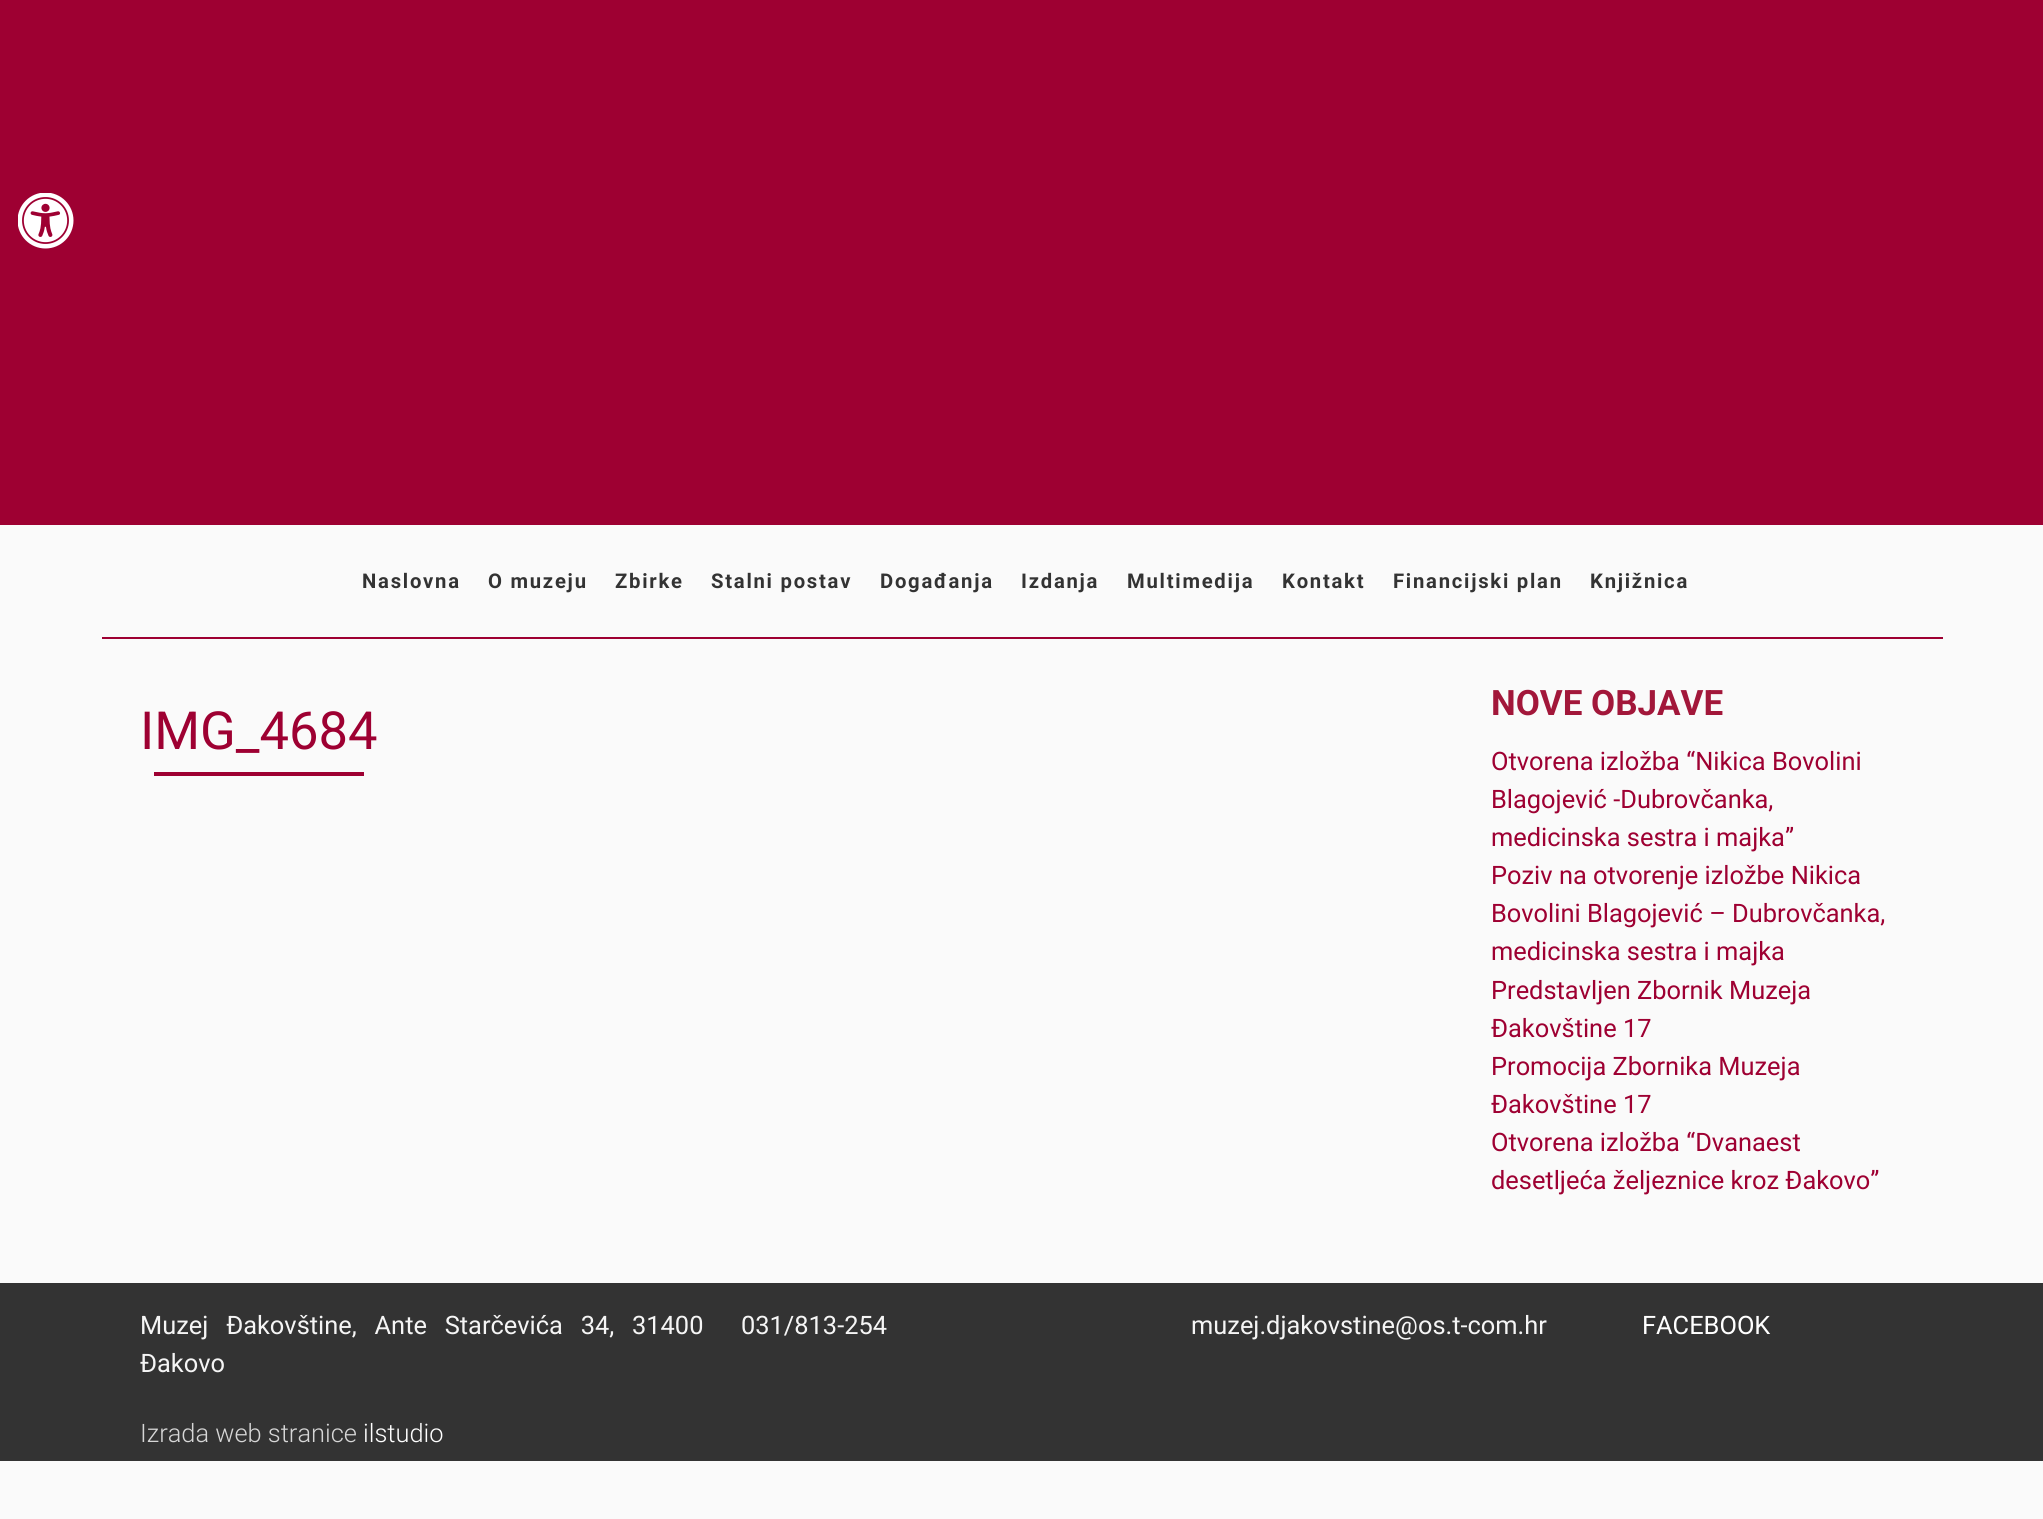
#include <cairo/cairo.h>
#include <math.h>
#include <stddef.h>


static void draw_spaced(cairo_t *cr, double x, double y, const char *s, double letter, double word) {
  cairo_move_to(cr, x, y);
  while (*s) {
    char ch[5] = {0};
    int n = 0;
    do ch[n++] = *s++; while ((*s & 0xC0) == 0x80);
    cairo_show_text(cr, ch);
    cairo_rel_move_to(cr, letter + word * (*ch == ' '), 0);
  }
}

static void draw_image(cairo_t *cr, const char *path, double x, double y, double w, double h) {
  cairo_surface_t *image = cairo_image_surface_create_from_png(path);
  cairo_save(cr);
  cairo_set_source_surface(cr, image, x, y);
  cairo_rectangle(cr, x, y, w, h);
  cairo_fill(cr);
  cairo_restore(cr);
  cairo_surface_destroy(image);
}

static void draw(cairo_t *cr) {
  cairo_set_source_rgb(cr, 250 / 255.0, 250 / 255.0, 250 / 255.0);
  cairo_paint(cr);
  cairo_set_source_rgb(cr, 158 / 255.0, 0, 50 / 255.0);
  cairo_rectangle(cr, 0, 0, 2043, 525);
  cairo_fill(cr);
  draw_image(cr, "images/1.png", 18, 193, 56, 56);
  cairo_rectangle(cr, 102, 637, 1841, 2);
  cairo_fill(cr);
  cairo_rectangle(cr, 154, 772, 210, 4);
  cairo_fill(cr);
  cairo_set_source_rgb(cr, 51 / 255.0, 51 / 255.0, 51 / 255.0);
  cairo_rectangle(cr, 0, 1283, 2043, 178);
  cairo_fill(cr);
  cairo_select_font_face(cr, "Roboto", CAIRO_FONT_SLANT_NORMAL, CAIRO_FONT_WEIGHT_BOLD);
  cairo_set_font_size(cr, 20.25);
  draw_spaced(cr, 362, 588, "Naslovna", 1.75, 0);
  draw_spaced(cr, 488, 588, "O muzeju", 1.75, 0);
  draw_spaced(cr, 615, 588, "Zbirke", 1.75, 0);
  draw_spaced(cr, 711, 588, "Stalni postav", 1.75, 0);
  draw_spaced(cr, 880, 588, "Događanja", 1.75, 0);
  draw_spaced(cr, 1021, 588, "Izdanja", 1.75, 0);
  draw_spaced(cr, 1127, 588, "Multimedija", 1.75, 0);
  draw_spaced(cr, 1282, 588, "Kontakt", 1.75, 0);
  draw_spaced(cr, 1393, 588, "Financijski plan", 1.75, 0);
  draw_spaced(cr, 1590, 588, "Knjižnica", 1.75, 0);
  cairo_select_font_face(cr, "Roboto", CAIRO_FONT_SLANT_NORMAL, CAIRO_FONT_WEIGHT_NORMAL);
  cairo_set_font_size(cr, 52.5);
  cairo_set_source_rgb(cr, 158 / 255.0, 0, 50 / 255.0);
  cairo_move_to(cr, 140, 749);
  cairo_show_text(cr, "IMG_4684");
  cairo_select_font_face(cr, "Roboto", CAIRO_FONT_SLANT_NORMAL, CAIRO_FONT_WEIGHT_BOLD);
  cairo_set_font_size(cr, 35);
  cairo_set_source_rgb(cr, 162 / 255.0, 23 / 255.0, 58 / 255.0);
  cairo_move_to(cr, 1491, 715);
  cairo_show_text(cr, "NOVE OBJAVE");
  cairo_select_font_face(cr, "Roboto", CAIRO_FONT_SLANT_NORMAL, CAIRO_FONT_WEIGHT_NORMAL);
  cairo_set_font_size(cr, 25.4);
  cairo_set_source_rgb(cr, 158 / 255.0, 0, 50 / 255.0);
  cairo_move_to(cr, 1491, 770);
  cairo_show_text(cr, "Otvorena izložba “Nikica Bovolini");
  cairo_move_to(cr, 1491, 808);
  cairo_show_text(cr, "Blagojević -Dubrovčanka,");
  cairo_move_to(cr, 1491, 846);
  cairo_show_text(cr, "medicinska sestra i majka”");
  cairo_move_to(cr, 1491, 884);
  cairo_show_text(cr, "Poziv na otvorenje izložbe Nikica");
  cairo_move_to(cr, 1491, 922);
  cairo_show_text(cr, "Bovolini Blagojević – Dubrovčanka,");
  cairo_move_to(cr, 1491, 960);
  cairo_show_text(cr, "medicinska sestra i majka");
  cairo_move_to(cr, 1491, 999);
  cairo_show_text(cr, "Predstavljen Zbornik Muzeja");
  cairo_move_to(cr, 1491, 1037);
  cairo_show_text(cr, "Đakovštine 17");
  cairo_move_to(cr, 1491, 1075);
  cairo_show_text(cr, "Promocija Zbornika Muzeja");
  cairo_move_to(cr, 1491, 1113);
  cairo_show_text(cr, "Đakovštine 17");
  cairo_move_to(cr, 1491, 1151);
  cairo_show_text(cr, "Otvorena izložba “Dvanaest");
  cairo_move_to(cr, 1491, 1189);
  cairo_show_text(cr, "desetljeća željeznice kroz Đakovo”");
  cairo_set_source_rgb(cr, 245 / 255.0, 245 / 255.0, 245 / 255.0);
  draw_spaced(cr, 140, 1334, "Muzej Đakovštine, Ante Starčevića 34, 31400", 0, 11.5);
  cairo_move_to(cr, 140, 1372);
  cairo_show_text(cr, "Đakovo");
  cairo_move_to(cr, 741, 1334);
  cairo_show_text(cr, "031/813-254");
  cairo_move_to(cr, 1191, 1334);
  cairo_show_text(cr, "muzej.djakovstine@os.t-com.hr");
  cairo_set_source_rgb(cr, 1, 1, 1);
  cairo_move_to(cr, 1642, 1334);
  cairo_show_text(cr, "FACEBOOK");
  cairo_select_font_face(cr, "Roboto Light", CAIRO_FONT_SLANT_NORMAL, CAIRO_FONT_WEIGHT_NORMAL);
  cairo_set_source_rgb(cr, 214 / 255.0, 214 / 255.0, 214 / 255.0);
  cairo_move_to(cr, 140, 1442);
  cairo_show_text(cr, "Izrada web stranice");
  cairo_set_source_rgb(cr, 1, 1, 1);
  cairo_move_to(cr, 363, 1442);
  cairo_show_text(cr, "ilstudio");
}

int main(void) {
  cairo_surface_t *surface = cairo_image_surface_create(CAIRO_FORMAT_RGB24, 2043, 1519);
  cairo_t *cr = cairo_create(surface);
  cairo_font_options_t *options = cairo_font_options_create();
  cairo_font_options_set_hint_metrics(options, CAIRO_HINT_METRICS_OFF);
  cairo_font_options_set_hint_style(options, CAIRO_HINT_STYLE_NONE);
  cairo_set_font_options(cr, options);
  cairo_set_miter_limit(cr, 4);
  draw(cr);
  cairo_surface_write_to_png(surface, "out.png");
  cairo_font_options_destroy(options);
  cairo_destroy(cr);
  cairo_surface_destroy(surface);
  return 0;
}
